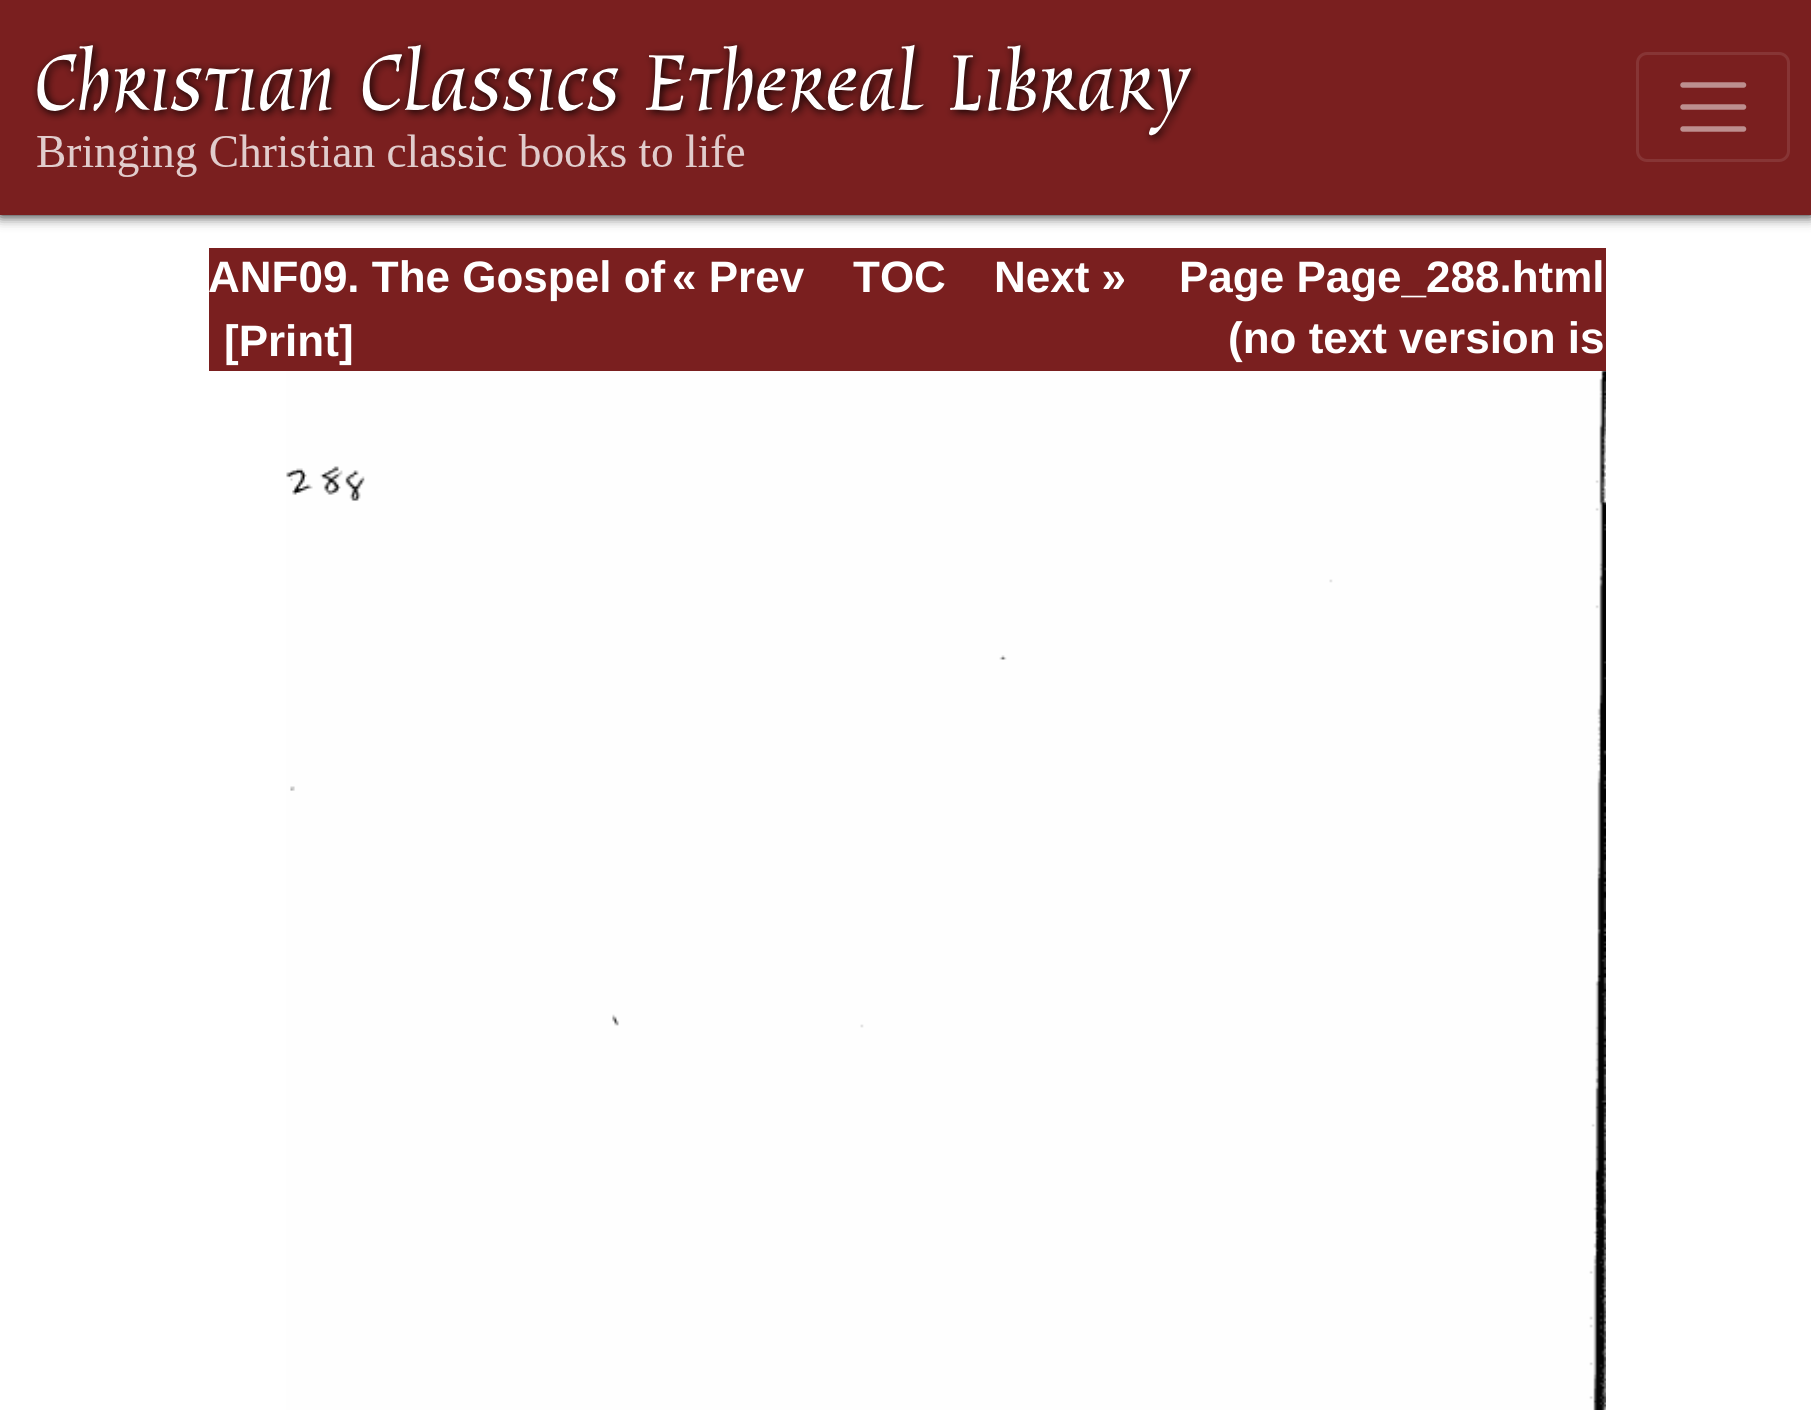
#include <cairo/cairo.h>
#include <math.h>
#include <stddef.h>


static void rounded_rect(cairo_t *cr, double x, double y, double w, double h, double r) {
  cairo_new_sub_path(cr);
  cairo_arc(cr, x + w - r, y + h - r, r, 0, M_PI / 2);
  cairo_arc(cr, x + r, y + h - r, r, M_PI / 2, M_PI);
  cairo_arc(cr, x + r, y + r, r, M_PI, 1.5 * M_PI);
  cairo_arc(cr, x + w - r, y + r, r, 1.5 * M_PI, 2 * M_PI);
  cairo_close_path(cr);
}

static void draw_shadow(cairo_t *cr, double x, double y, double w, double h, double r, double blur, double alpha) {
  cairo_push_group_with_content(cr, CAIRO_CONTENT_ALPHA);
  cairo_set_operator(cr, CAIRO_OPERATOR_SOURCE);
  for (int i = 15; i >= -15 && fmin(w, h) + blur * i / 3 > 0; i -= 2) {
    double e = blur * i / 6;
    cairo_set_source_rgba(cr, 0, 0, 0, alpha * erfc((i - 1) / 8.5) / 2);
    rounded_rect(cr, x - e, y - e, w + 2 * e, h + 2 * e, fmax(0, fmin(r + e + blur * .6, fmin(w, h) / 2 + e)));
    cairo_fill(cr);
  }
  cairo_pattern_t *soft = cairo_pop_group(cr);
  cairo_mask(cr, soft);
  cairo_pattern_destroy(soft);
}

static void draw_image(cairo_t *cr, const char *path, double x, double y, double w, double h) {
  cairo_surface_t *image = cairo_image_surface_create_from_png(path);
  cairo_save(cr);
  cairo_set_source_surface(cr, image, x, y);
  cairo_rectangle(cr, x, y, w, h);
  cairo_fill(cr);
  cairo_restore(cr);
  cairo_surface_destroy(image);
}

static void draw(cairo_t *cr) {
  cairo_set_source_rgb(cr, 1, 1, 1);
  cairo_paint(cr);
  cairo_set_source_rgb(cr, 0, 0, 0);
  draw_shadow(cr, 0, 0, 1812, 215, 0, 7, 1);
  cairo_set_source_rgb(cr, 122 / 255.0, 31 / 255.0, 31 / 255.0);
  cairo_rectangle(cr, 0, 0, 1811, 215);
  cairo_fill(cr);
  draw_image(cr, "images/1.png", 32, 41, 1166, 136);
  rounded_rect(cr, 1637.5, 53.5, 151, 107, 9.5);
  cairo_set_source_rgb(cr, 135 / 255.0, 53 / 255.0, 53 / 255.0);
  cairo_set_line_width(cr, 3);
  cairo_stroke(cr);
  cairo_new_path(cr);
  cairo_move_to(cr, 1683, 85);
  cairo_line_to(cr, 1743.5, 85);
  cairo_move_to(cr, 1683, 107);
  cairo_line_to(cr, 1743.5, 107);
  cairo_move_to(cr, 1683, 129);
  cairo_line_to(cr, 1743.5, 129);
  cairo_set_source_rgb(cr, 189 / 255.0, 143 / 255.0, 143 / 255.0);
  cairo_set_line_width(cr, 5.5);
  cairo_set_line_cap(cr, CAIRO_LINE_CAP_ROUND);
  cairo_stroke(cr);
  cairo_set_source_rgb(cr, 122 / 255.0, 31 / 255.0, 31 / 255.0);
  cairo_rectangle(cr, 209, 248, 1397, 123);
  cairo_fill(cr);
  draw_image(cr, "images/2.png", 286, 371, 1320, 1039);
  cairo_select_font_face(cr, "Liberation Sans", CAIRO_FONT_SLANT_NORMAL, CAIRO_FONT_WEIGHT_BOLD);
  cairo_set_font_size(cr, 44);
  cairo_set_source_rgb(cr, 1, 1, 1);
  cairo_move_to(cr, 208, 292);
  cairo_show_text(cr, "ANF09. The Gospel of");
  cairo_move_to(cr, 672, 292);
  cairo_show_text(cr, "« Prev");
  cairo_move_to(cr, 853, 292);
  cairo_show_text(cr, "TOC");
  cairo_move_to(cr, 994, 292);
  cairo_show_text(cr, "Next »");
  cairo_move_to(cr, 1179, 292);
  cairo_show_text(cr, "Page Page_288.html");
  cairo_move_to(cr, 224, 356);
  cairo_show_text(cr, "[Print]");
  cairo_move_to(cr, 1228, 353);
  cairo_show_text(cr, "(no text version is");
}

int main(void) {
  cairo_surface_t *surface = cairo_image_surface_create(CAIRO_FORMAT_RGB24, 1811, 1410);
  cairo_t *cr = cairo_create(surface);
  cairo_font_options_t *options = cairo_font_options_create();
  cairo_font_options_set_hint_metrics(options, CAIRO_HINT_METRICS_OFF);
  cairo_font_options_set_hint_style(options, CAIRO_HINT_STYLE_NONE);
  cairo_set_font_options(cr, options);
  cairo_set_miter_limit(cr, 4);
  draw(cr);
  cairo_surface_write_to_png(surface, "out.png");
  cairo_font_options_destroy(options);
  cairo_destroy(cr);
  cairo_surface_destroy(surface);
  return 0;
}
